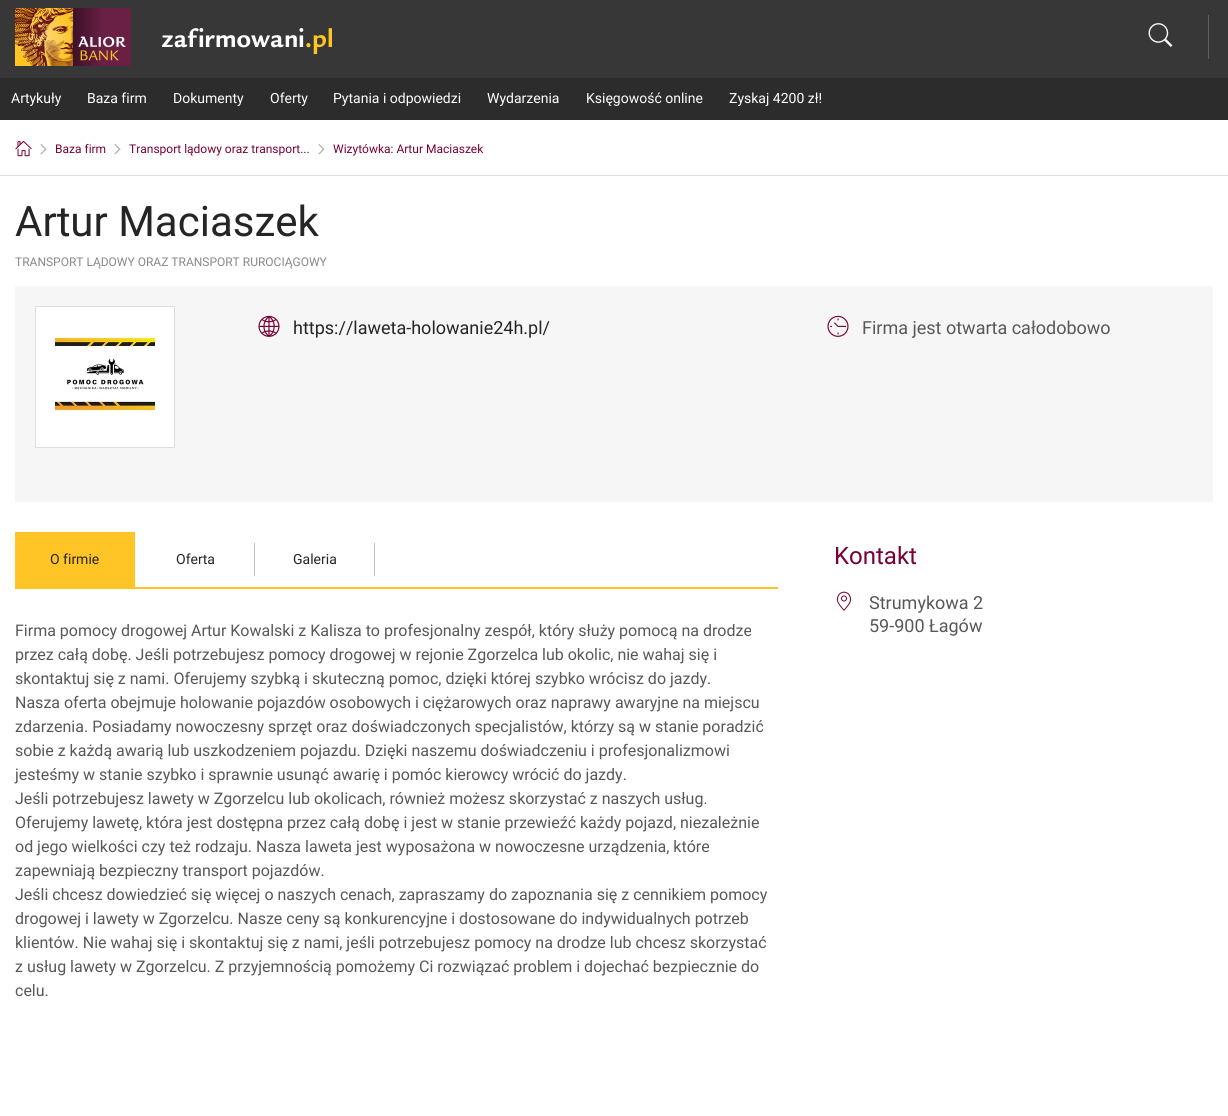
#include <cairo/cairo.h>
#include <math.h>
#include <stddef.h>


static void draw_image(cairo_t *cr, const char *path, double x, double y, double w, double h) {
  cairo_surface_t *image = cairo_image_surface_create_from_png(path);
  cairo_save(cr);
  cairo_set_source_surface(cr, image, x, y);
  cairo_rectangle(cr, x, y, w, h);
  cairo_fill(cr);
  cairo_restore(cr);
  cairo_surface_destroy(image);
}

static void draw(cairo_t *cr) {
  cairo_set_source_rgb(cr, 1, 1, 1);
  cairo_paint(cr);
  cairo_set_source_rgb(cr, 55 / 255.0, 55 / 255.0, 55 / 255.0);
  cairo_rectangle(cr, 0, 0, 1228, 78);
  cairo_fill(cr);
  draw_image(cr, "images/1.png", 15, 8, 317, 58);
  draw_image(cr, "images/2.png", 1148, 23, 25, 24);
  cairo_set_source_rgb(cr, 95 / 255.0, 95 / 255.0, 95 / 255.0);
  cairo_rectangle(cr, 1208, 15, 1, 44);
  cairo_fill(cr);
  cairo_set_source_rgb(cr, 44 / 255.0, 44 / 255.0, 44 / 255.0);
  cairo_rectangle(cr, 0, 78, 1228, 42);
  cairo_fill(cr);
  cairo_set_source_rgb(cr, 222 / 255.0, 222 / 255.0, 222 / 255.0);
  cairo_rectangle(cr, 0, 175, 1228, 1);
  cairo_fill(cr);
  draw_image(cr, "images/3.png", 15, 140, 17, 17);
  draw_image(cr, "images/4.png", 40, 144, 7, 11);
  draw_image(cr, "images/4.png", 114, 144, 7, 11);
  draw_image(cr, "images/4.png", 318, 144, 7, 11);
  cairo_set_source_rgb(cr, 246 / 255.0, 246 / 255.0, 246 / 255.0);
  cairo_rectangle(cr, 15, 286, 1198, 216);
  cairo_fill(cr);
  cairo_set_source_rgb(cr, 1, 1, 1);
  cairo_rectangle(cr, 35.5, 306.5, 139, 141);
  cairo_fill_preserve(cr);
  cairo_set_source_rgb(cr, 222 / 255.0, 222 / 255.0, 222 / 255.0);
  cairo_set_line_width(cr, 1);
  cairo_stroke(cr);
  draw_image(cr, "images/5.png", 55, 336, 100, 76);
  draw_image(cr, "images/6.png", 258, 315, 22, 22);
  draw_image(cr, "images/7.png", 827, 315, 22, 22);
  cairo_set_source_rgb(cr, 1, 196 / 255.0, 38 / 255.0);
  cairo_rectangle(cr, 15, 587, 763, 2);
  cairo_fill(cr);
  cairo_rectangle(cr, 15, 532, 120, 55);
  cairo_fill(cr);
  cairo_set_source_rgb(cr, 190 / 255.0, 190 / 255.0, 190 / 255.0);
  cairo_rectangle(cr, 254, 543, 1, 33);
  cairo_fill(cr);
  cairo_rectangle(cr, 374, 543, 1, 33);
  cairo_fill(cr);
  draw_image(cr, "images/8.png", 836, 591, 16, 20);
  cairo_select_font_face(cr, "Roboto", CAIRO_FONT_SLANT_NORMAL, CAIRO_FONT_WEIGHT_NORMAL);
  cairo_set_font_size(cr, 14);
  cairo_set_source_rgb(cr, 1, 1, 1);
  cairo_move_to(cr, 11, 103);
  cairo_show_text(cr, "Artykuły");
  cairo_move_to(cr, 87, 103);
  cairo_show_text(cr, "Baza firm");
  cairo_move_to(cr, 173, 103);
  cairo_show_text(cr, "Dokumenty");
  cairo_move_to(cr, 270, 103);
  cairo_show_text(cr, "Oferty");
  cairo_move_to(cr, 333, 103);
  cairo_show_text(cr, "Pytania i odpowiedzi");
  cairo_move_to(cr, 487, 103);
  cairo_show_text(cr, "Wydarzenia");
  cairo_move_to(cr, 586, 103);
  cairo_show_text(cr, "Księgowość online");
  cairo_move_to(cr, 729, 103);
  cairo_show_text(cr, "Zyskaj 4200 zł!");
  cairo_set_font_size(cr, 12);
  cairo_set_source_rgb(cr, 122 / 255.0, 0, 53 / 255.0);
  cairo_move_to(cr, 55, 153);
  cairo_show_text(cr, "Baza firm");
  cairo_move_to(cr, 129, 153);
  cairo_show_text(cr, "Transport lądowy oraz transport...");
  cairo_move_to(cr, 333, 153);
  cairo_show_text(cr, "Wizytówka: Artur Maciaszek");
  cairo_set_font_size(cr, 42);
  cairo_set_source_rgb(cr, 37 / 255.0, 37 / 255.0, 37 / 255.0);
  cairo_move_to(cr, 15, 236);
  cairo_show_text(cr, "Artur Maciaszek");
  cairo_set_font_size(cr, 12);
  cairo_set_source_rgb(cr, 136 / 255.0, 136 / 255.0, 136 / 255.0);
  cairo_move_to(cr, 15, 266);
  cairo_show_text(cr, "TRANSPORT LĄDOWY ORAZ TRANSPORT RUROCIĄGOWY");
  cairo_set_font_size(cr, 18);
  cairo_set_source_rgb(cr, 37 / 255.0, 37 / 255.0, 37 / 255.0);
  cairo_move_to(cr, 293, 334);
  cairo_show_text(cr, "https://laweta-holowanie24h.pl/");
  cairo_set_source_rgb(cr, 88 / 255.0, 88 / 255.0, 88 / 255.0);
  cairo_move_to(cr, 862, 334);
  cairo_show_text(cr, "Firma jest otwarta całodobowo");
  cairo_set_font_size(cr, 14);
  cairo_set_source_rgb(cr, 37 / 255.0, 37 / 255.0, 37 / 255.0);
  cairo_move_to(cr, 50, 564);
  cairo_show_text(cr, "O firmie");
  cairo_move_to(cr, 176, 564);
  cairo_show_text(cr, "Oferta");
  cairo_move_to(cr, 293, 564);
  cairo_show_text(cr, "Galeria");
  cairo_set_font_size(cr, 16);
  cairo_set_source_rgb(cr, 88 / 255.0, 88 / 255.0, 88 / 255.0);
  cairo_move_to(cr, 15, 636);
  cairo_show_text(cr, "Firma pomocy drogowej Artur Kowalski z Kalisza to profesjonalny zespół, który służy pomocą na drodze");
  cairo_move_to(cr, 15, 660);
  cairo_show_text(cr, "przez całą dobę. Jeśli potrzebujesz pomocy drogowej w rejonie Zgorzelca lub okolic, nie wahaj się i");
  cairo_move_to(cr, 15, 684);
  cairo_show_text(cr, "skontaktuj się z nami. Oferujemy szybką i skuteczną pomoc, dzięki której szybko wrócisz do jazdy.");
  cairo_move_to(cr, 15, 708);
  cairo_show_text(cr, "Nasza oferta obejmuje holowanie pojazdów osobowych i ciężarowych oraz naprawy awaryjne na miejscu");
  cairo_move_to(cr, 15, 732);
  cairo_show_text(cr, "zdarzenia. Posiadamy nowoczesny sprzęt oraz doświadczonych specjalistów, którzy są w stanie poradzić");
  cairo_move_to(cr, 15, 756);
  cairo_show_text(cr, "sobie z każdą awarią lub uszkodzeniem pojazdu. Dzięki naszemu doświadczeniu i profesjonalizmowi");
  cairo_move_to(cr, 15, 780);
  cairo_show_text(cr, "jesteśmy w stanie szybko i sprawnie usunąć awarię i pomóc kierowcy wrócić do jazdy.");
  cairo_move_to(cr, 15, 804);
  cairo_show_text(cr, "Jeśli potrzebujesz lawety w Zgorzelcu lub okolicach, również możesz skorzystać z naszych usług.");
  cairo_move_to(cr, 15, 828);
  cairo_show_text(cr, "Oferujemy lawetę, która jest dostępna przez całą dobę i jest w stanie przewieźć każdy pojazd, niezależnie");
  cairo_move_to(cr, 15, 852);
  cairo_show_text(cr, "od jego wielkości czy też rodzaju. Nasza laweta jest wyposażona w nowoczesne urządzenia, które");
  cairo_move_to(cr, 15, 876);
  cairo_show_text(cr, "zapewniają bezpieczny transport pojazdów.");
  cairo_move_to(cr, 15, 900);
  cairo_show_text(cr, "Jeśli chcesz dowiedzieć się więcej o naszych cenach, zapraszamy do zapoznania się z cennikiem pomocy");
  cairo_move_to(cr, 15, 924);
  cairo_show_text(cr, "drogowej i lawety w Zgorzelcu. Nasze ceny są konkurencyjne i dostosowane do indywidualnych potrzeb");
  cairo_move_to(cr, 15, 948);
  cairo_show_text(cr, "klientów. Nie wahaj się i skontaktuj się z nami, jeśli potrzebujesz pomocy na drodze lub chcesz skorzystać");
  cairo_move_to(cr, 15, 972);
  cairo_show_text(cr, "z usług lawety w Zgorzelcu. Z przyjemnością pomożemy Ci rozwiązać problem i dojechać bezpiecznie do");
  cairo_move_to(cr, 15, 996);
  cairo_show_text(cr, "celu.");
  cairo_set_font_size(cr, 24);
  cairo_set_source_rgb(cr, 122 / 255.0, 0, 53 / 255.0);
  cairo_move_to(cr, 834, 564);
  cairo_show_text(cr, "Kontakt");
  cairo_set_font_size(cr, 18);
  cairo_set_source_rgb(cr, 88 / 255.0, 88 / 255.0, 88 / 255.0);
  cairo_move_to(cr, 869, 609);
  cairo_show_text(cr, "Strumykowa 2");
  cairo_move_to(cr, 869, 632);
  cairo_show_text(cr, "59-900 Łagów");
}

int main(void) {
  cairo_surface_t *surface = cairo_image_surface_create(CAIRO_FORMAT_RGB24, 1228, 1116);
  cairo_t *cr = cairo_create(surface);
  cairo_font_options_t *options = cairo_font_options_create();
  cairo_font_options_set_hint_metrics(options, CAIRO_HINT_METRICS_OFF);
  cairo_font_options_set_hint_style(options, CAIRO_HINT_STYLE_NONE);
  cairo_set_font_options(cr, options);
  cairo_set_miter_limit(cr, 4);
  draw(cr);
  cairo_surface_write_to_png(surface, "out.png");
  cairo_font_options_destroy(options);
  cairo_destroy(cr);
  cairo_surface_destroy(surface);
  return 0;
}
